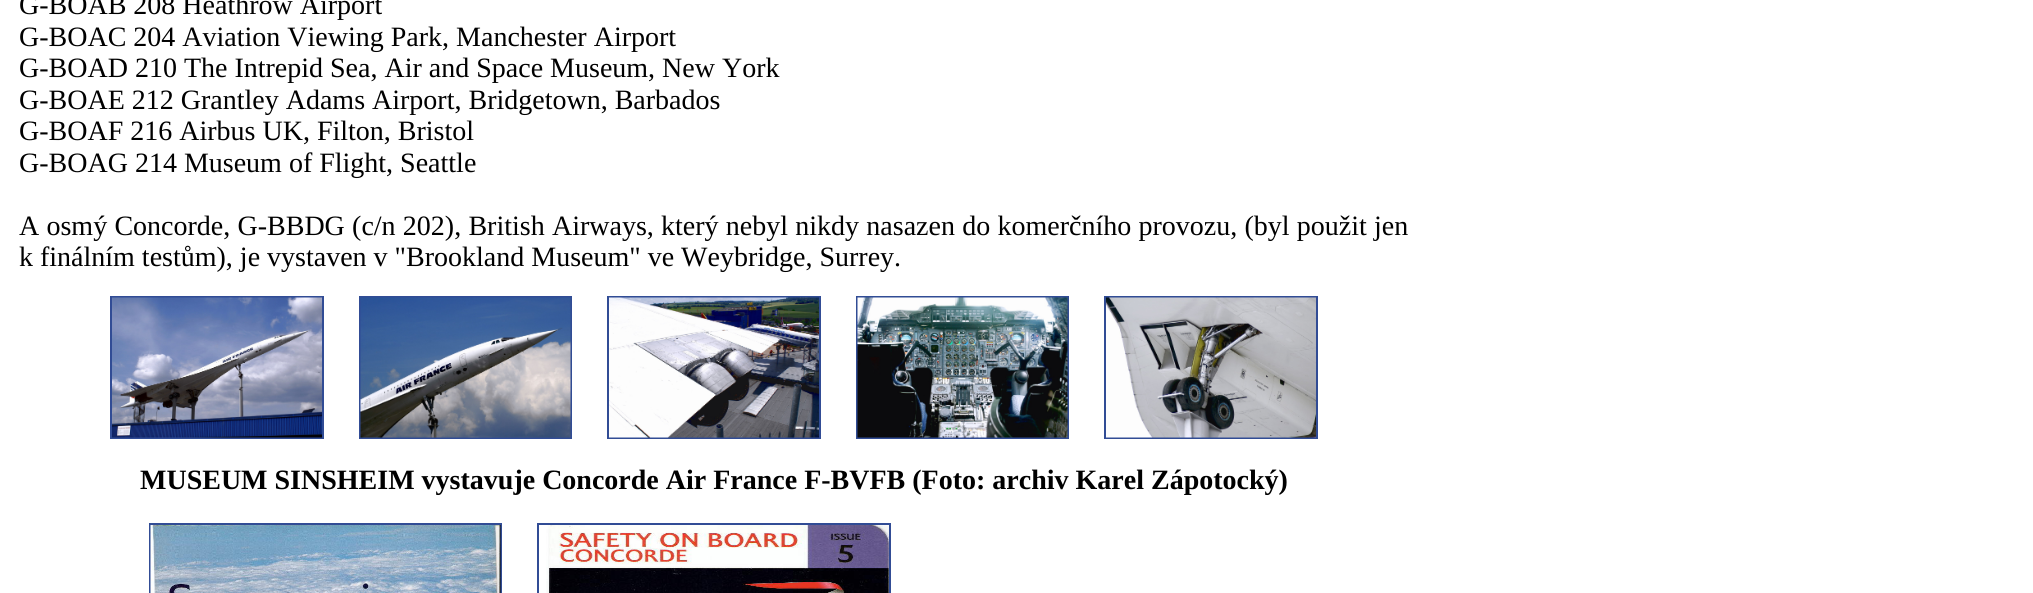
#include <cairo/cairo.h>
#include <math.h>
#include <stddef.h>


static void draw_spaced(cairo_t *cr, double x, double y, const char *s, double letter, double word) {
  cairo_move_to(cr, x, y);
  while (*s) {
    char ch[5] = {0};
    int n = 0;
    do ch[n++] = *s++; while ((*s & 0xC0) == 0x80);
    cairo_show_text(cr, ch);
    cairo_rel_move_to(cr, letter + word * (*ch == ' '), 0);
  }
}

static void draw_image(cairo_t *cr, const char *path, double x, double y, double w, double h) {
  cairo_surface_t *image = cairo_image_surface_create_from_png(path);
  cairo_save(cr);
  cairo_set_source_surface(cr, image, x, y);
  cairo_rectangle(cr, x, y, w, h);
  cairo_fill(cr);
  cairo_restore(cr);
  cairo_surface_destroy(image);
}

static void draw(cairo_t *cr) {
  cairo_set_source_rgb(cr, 1, 1, 1);
  cairo_paint(cr);
  cairo_rectangle(cr, 111, 297, 212, 141);
  cairo_set_source_rgb(cr, 49 / 255.0, 76 / 255.0, 149 / 255.0);
  cairo_stroke(cr);
  cairo_rectangle(cr, 360, 297, 211, 141);
  cairo_stroke(cr);
  cairo_rectangle(cr, 608, 297, 212, 141);
  cairo_stroke(cr);
  cairo_rectangle(cr, 857, 297, 211, 141);
  cairo_stroke(cr);
  cairo_rectangle(cr, 1105, 297, 212, 141);
  cairo_stroke(cr);
  draw_image(cr, "images/1.png", 112, 297, 210, 141);
  draw_image(cr, "images/2.png", 360, 297, 211, 141);
  draw_image(cr, "images/3.png", 609, 297, 210, 141);
  draw_image(cr, "images/4.png", 857, 297, 211, 141);
  draw_image(cr, "images/5.png", 1106, 297, 210, 141);
  cairo_rectangle(cr, 150, 524, 351, 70);
  cairo_stroke(cr);
  cairo_rectangle(cr, 538, 524, 352, 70);
  cairo_stroke(cr);
  draw_image(cr, "images/6.png", 150, 525, 351, 68);
  draw_image(cr, "images/7.png", 546, 525, 343, 68);
  cairo_select_font_face(cr, "Liberation Serif", CAIRO_FONT_SLANT_NORMAL, CAIRO_FONT_WEIGHT_NORMAL);
  cairo_set_font_size(cr, 28);
  cairo_set_source_rgb(cr, 0, 0, 0);
  cairo_move_to(cr, 19, 14);
  cairo_show_text(cr, "G-BOAB 208 Heathrow Airport");
  cairo_move_to(cr, 19, 46);
  cairo_show_text(cr, "G-BOAC 204 Aviation Viewing Park, Manchester Airport");
  cairo_move_to(cr, 19, 77);
  cairo_show_text(cr, "G-BOAD 210 The Intrepid Sea, Air and Space Museum, New York");
  cairo_move_to(cr, 19, 109);
  cairo_show_text(cr, "G-BOAE 212 Grantley Adams Airport, Bridgetown, Barbados");
  cairo_move_to(cr, 19, 140);
  cairo_show_text(cr, "G-BOAF 216 Airbus UK, Filton, Bristol");
  cairo_move_to(cr, 19, 172);
  cairo_show_text(cr, "G-BOAG 214 Museum of Flight, Seattle");
  draw_spaced(cr, 19, 235, "A osmý Concorde, G-BBDG (c/n 202), British Airways, který nebyl nikdy nasazen do komerčního provozu, (byl použit jen", 0, 0.25);
  cairo_move_to(cr, 19, 266);
  cairo_show_text(cr, "k finálním testům), je vystaven v \"Brookland Museum\" ve Weybridge, Surrey.");
  cairo_select_font_face(cr, "Liberation Serif", CAIRO_FONT_SLANT_NORMAL, CAIRO_FONT_WEIGHT_BOLD);
  cairo_move_to(cr, 140, 489);
  cairo_show_text(cr, "MUSEUM SINSHEIM vystavuje Concorde Air France F-BVFB (Foto: archiv Karel Zápotocký)");
}

int main(void) {
  cairo_surface_t *surface = cairo_image_surface_create(CAIRO_FORMAT_RGB24, 2033, 593);
  cairo_t *cr = cairo_create(surface);
  cairo_font_options_t *options = cairo_font_options_create();
  cairo_font_options_set_hint_metrics(options, CAIRO_HINT_METRICS_OFF);
  cairo_font_options_set_hint_style(options, CAIRO_HINT_STYLE_NONE);
  cairo_set_font_options(cr, options);
  cairo_set_miter_limit(cr, 4);
  draw(cr);
  cairo_surface_write_to_png(surface, "out.png");
  cairo_font_options_destroy(options);
  cairo_destroy(cr);
  cairo_surface_destroy(surface);
  return 0;
}
